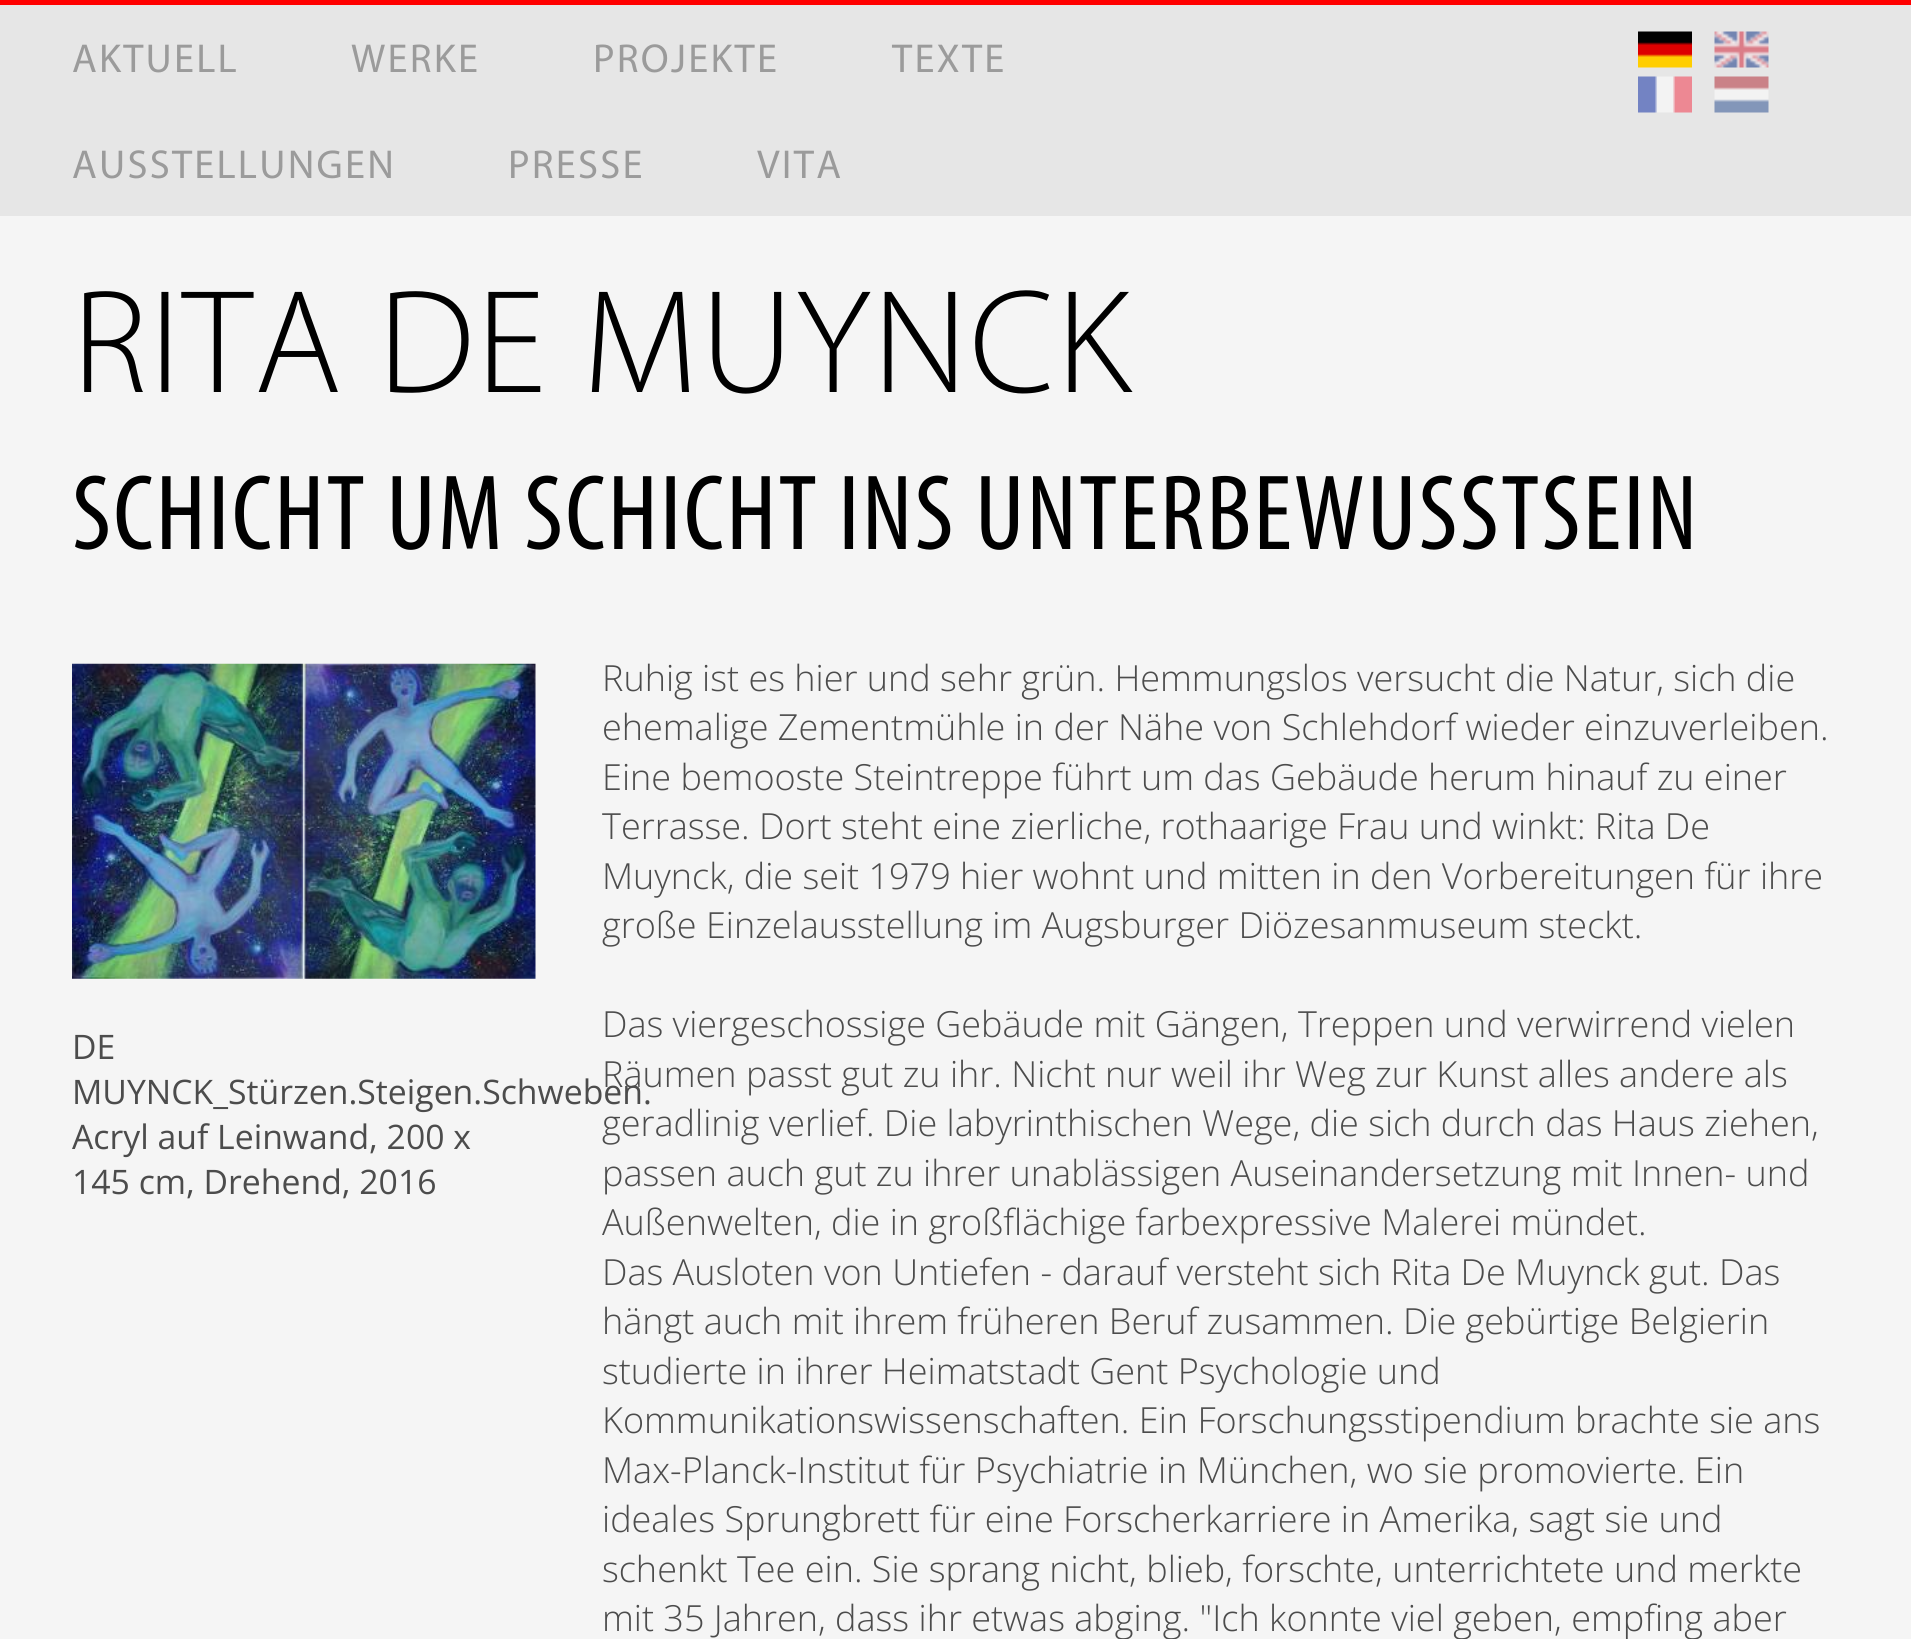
#include <cairo/cairo.h>
#include <math.h>
#include <stddef.h>


static void draw_spaced(cairo_t *cr, double x, double y, const char *s, double letter, double word) {
  cairo_move_to(cr, x, y);
  while (*s) {
    char ch[5] = {0};
    int n = 0;
    do ch[n++] = *s++; while ((*s & 0xC0) == 0x80);
    cairo_show_text(cr, ch);
    cairo_rel_move_to(cr, letter + word * (*ch == ' '), 0);
  }
}

static void draw_image(cairo_t *cr, const char *path, double x, double y, double w, double h) {
  cairo_surface_t *image = cairo_image_surface_create_from_png(path);
  cairo_save(cr);
  cairo_set_source_surface(cr, image, x, y);
  cairo_rectangle(cr, x, y, w, h);
  cairo_fill(cr);
  cairo_restore(cr);
  cairo_surface_destroy(image);
}

static void draw(cairo_t *cr) {
  cairo_set_source_rgb(cr, 230 / 255.0, 230 / 255.0, 230 / 255.0);
  cairo_paint(cr);
  cairo_set_source_rgb(cr, 1, 0, 0);
  cairo_rectangle(cr, 0, 0, 1911, 5);
  cairo_fill(cr);
  draw_image(cr, "images/1.png", 1638, 31, 54, 37);
  draw_image(cr, "images/2.png", 1714, 31, 55, 37);
  draw_image(cr, "images/3.png", 1638, 76, 54, 37);
  draw_image(cr, "images/4.png", 1714, 76, 55, 37);
  cairo_set_source_rgb(cr, 245 / 255.0, 245 / 255.0, 245 / 255.0);
  cairo_rectangle(cr, 0, 216, 1911, 1423);
  cairo_fill(cr);
  draw_image(cr, "images/5.png", 72, 663, 464, 316);
  cairo_select_font_face(cr, "Myriad", CAIRO_FONT_SLANT_NORMAL, CAIRO_FONT_WEIGHT_NORMAL);
  cairo_set_font_size(cr, 40.5);
  cairo_set_source_rgb(cr, 155 / 255.0, 155 / 255.0, 155 / 255.0);
  draw_spaced(cr, 72, 72, "AKTUELL", 2.25, 0);
  draw_spaced(cr, 351, 72, "WERKE", 2.25, 0);
  draw_spaced(cr, 593, 72, "PROJEKTE", 2.25, 0);
  draw_spaced(cr, 892, 72, "TEXTE", 2.25, 0);
  draw_spaced(cr, 72, 178, "AUSSTELLUNGEN", 2.25, 0);
  draw_spaced(cr, 508, 178, "PRESSE", 2.25, 0);
  draw_spaced(cr, 757, 178, "VITA", 2.25, 0);
  cairo_select_font_face(cr, "Myriad Light", CAIRO_FONT_SLANT_NORMAL, CAIRO_FONT_WEIGHT_NORMAL);
  cairo_set_font_size(cr, 148.5);
  cairo_set_source_rgb(cr, 0, 0, 0);
  draw_spaced(cr, 72, 392, "RITA DE MUYNCK", 2.25, 0);
  cairo_select_font_face(cr, "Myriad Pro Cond", CAIRO_FONT_SLANT_NORMAL, CAIRO_FONT_WEIGHT_NORMAL);
  cairo_set_font_size(cr, 108);
  draw_spaced(cr, 72, 549, "SCHICHT UM SCHICHT INS UNTERBEWUSSTSEIN", 2.25, 0);
  cairo_select_font_face(cr, "Open Sans", CAIRO_FONT_SLANT_NORMAL, CAIRO_FONT_WEIGHT_NORMAL);
  cairo_set_font_size(cr, 33.75);
  cairo_set_source_rgb(cr, 76 / 255.0, 76 / 255.0, 76 / 255.0);
  cairo_move_to(cr, 72, 1059);
  cairo_show_text(cr, "DE");
  cairo_move_to(cr, 72, 1149);
  cairo_show_text(cr, "Acryl auf Leinwand, 200 x");
  cairo_move_to(cr, 72, 1194);
  cairo_show_text(cr, "145 cm, Drehend, 2016");
  cairo_select_font_face(cr, "Open Sans Light", CAIRO_FONT_SLANT_NORMAL, CAIRO_FONT_WEIGHT_NORMAL);
  cairo_set_font_size(cr, 36);
  cairo_move_to(cr, 602, 691);
  cairo_show_text(cr, "Ruhig ist es hier und sehr grün. Hemmungslos versucht die Natur, sich die");
  cairo_move_to(cr, 602, 740);
  cairo_show_text(cr, "ehemalige Zementmühle in der Nähe von Schlehdorf wieder einzuverleiben.");
  cairo_move_to(cr, 602, 790);
  cairo_show_text(cr, "Eine bemooste Steintreppe führt um das Gebäude herum hinauf zu einer");
  cairo_move_to(cr, 602, 839);
  cairo_show_text(cr, "Terrasse. Dort steht eine zierliche, rothaarige Frau und winkt: Rita De");
  cairo_move_to(cr, 602, 889);
  cairo_show_text(cr, "Muynck, die seit 1979 hier wohnt und mitten in den Vorbereitungen für ihre");
  cairo_move_to(cr, 602, 938);
  cairo_show_text(cr, "große Einzelausstellung im Augsburger Diözesanmuseum steckt.");
  cairo_move_to(cr, 602, 1037);
  cairo_show_text(cr, "Das viergeschossige Gebäude mit Gängen, Treppen und verwirrend vielen");
  cairo_move_to(cr, 602, 1087);
  cairo_show_text(cr, "Räumen passt gut zu ihr. Nicht nur weil ihr Weg zur Kunst alles andere als");
  cairo_select_font_face(cr, "Open Sans", CAIRO_FONT_SLANT_NORMAL, CAIRO_FONT_WEIGHT_NORMAL);
  cairo_set_font_size(cr, 33.75);
  cairo_move_to(cr, 72, 1104);
  cairo_show_text(cr, "MUYNCK_Stürzen.Steigen.Schweben.");
  cairo_select_font_face(cr, "Open Sans Light", CAIRO_FONT_SLANT_NORMAL, CAIRO_FONT_WEIGHT_NORMAL);
  cairo_set_font_size(cr, 36);
  cairo_move_to(cr, 602, 1136);
  cairo_show_text(cr, "geradlinig verlief. Die labyrinthischen Wege, die sich durch das Haus ziehen,");
  cairo_move_to(cr, 602, 1186);
  cairo_show_text(cr, "passen auch gut zu ihrer unablässigen Auseinandersetzung mit Innen- und");
  cairo_move_to(cr, 602, 1235);
  cairo_show_text(cr, "Außenwelten, die in großflächige farbexpressive Malerei mündet.");
  cairo_move_to(cr, 602, 1285);
  cairo_show_text(cr, "Das Ausloten von Untiefen - darauf versteht sich Rita De Muynck gut. Das");
  cairo_move_to(cr, 602, 1334);
  cairo_show_text(cr, "hängt auch mit ihrem früheren Beruf zusammen. Die gebürtige Belgierin");
  cairo_move_to(cr, 602, 1384);
  cairo_show_text(cr, "studierte in ihrer Heimatstadt Gent Psychologie und");
  cairo_move_to(cr, 602, 1433);
  cairo_show_text(cr, "Kommunikationswissenschaften. Ein Forschungsstipendium brachte sie ans");
  cairo_move_to(cr, 602, 1483);
  cairo_show_text(cr, "Max-Planck-Institut für Psychiatrie in München, wo sie promovierte. Ein");
  cairo_move_to(cr, 602, 1532);
  cairo_show_text(cr, "ideales Sprungbrett für eine Forscherkarriere in Amerika, sagt sie und");
  cairo_move_to(cr, 602, 1582);
  cairo_show_text(cr, "schenkt Tee ein. Sie sprang nicht, blieb, forschte, unterrichtete und merkte");
  cairo_move_to(cr, 602, 1631);
  cairo_show_text(cr, "mit 35 Jahren, dass ihr etwas abging. \"Ich konnte viel geben, empfing aber");
}

int main(void) {
  cairo_surface_t *surface = cairo_image_surface_create(CAIRO_FORMAT_RGB24, 1911, 1639);
  cairo_t *cr = cairo_create(surface);
  cairo_font_options_t *options = cairo_font_options_create();
  cairo_font_options_set_hint_metrics(options, CAIRO_HINT_METRICS_OFF);
  cairo_font_options_set_hint_style(options, CAIRO_HINT_STYLE_NONE);
  cairo_set_font_options(cr, options);
  cairo_set_miter_limit(cr, 4);
  draw(cr);
  cairo_surface_write_to_png(surface, "out.png");
  cairo_font_options_destroy(options);
  cairo_destroy(cr);
  cairo_surface_destroy(surface);
  return 0;
}
